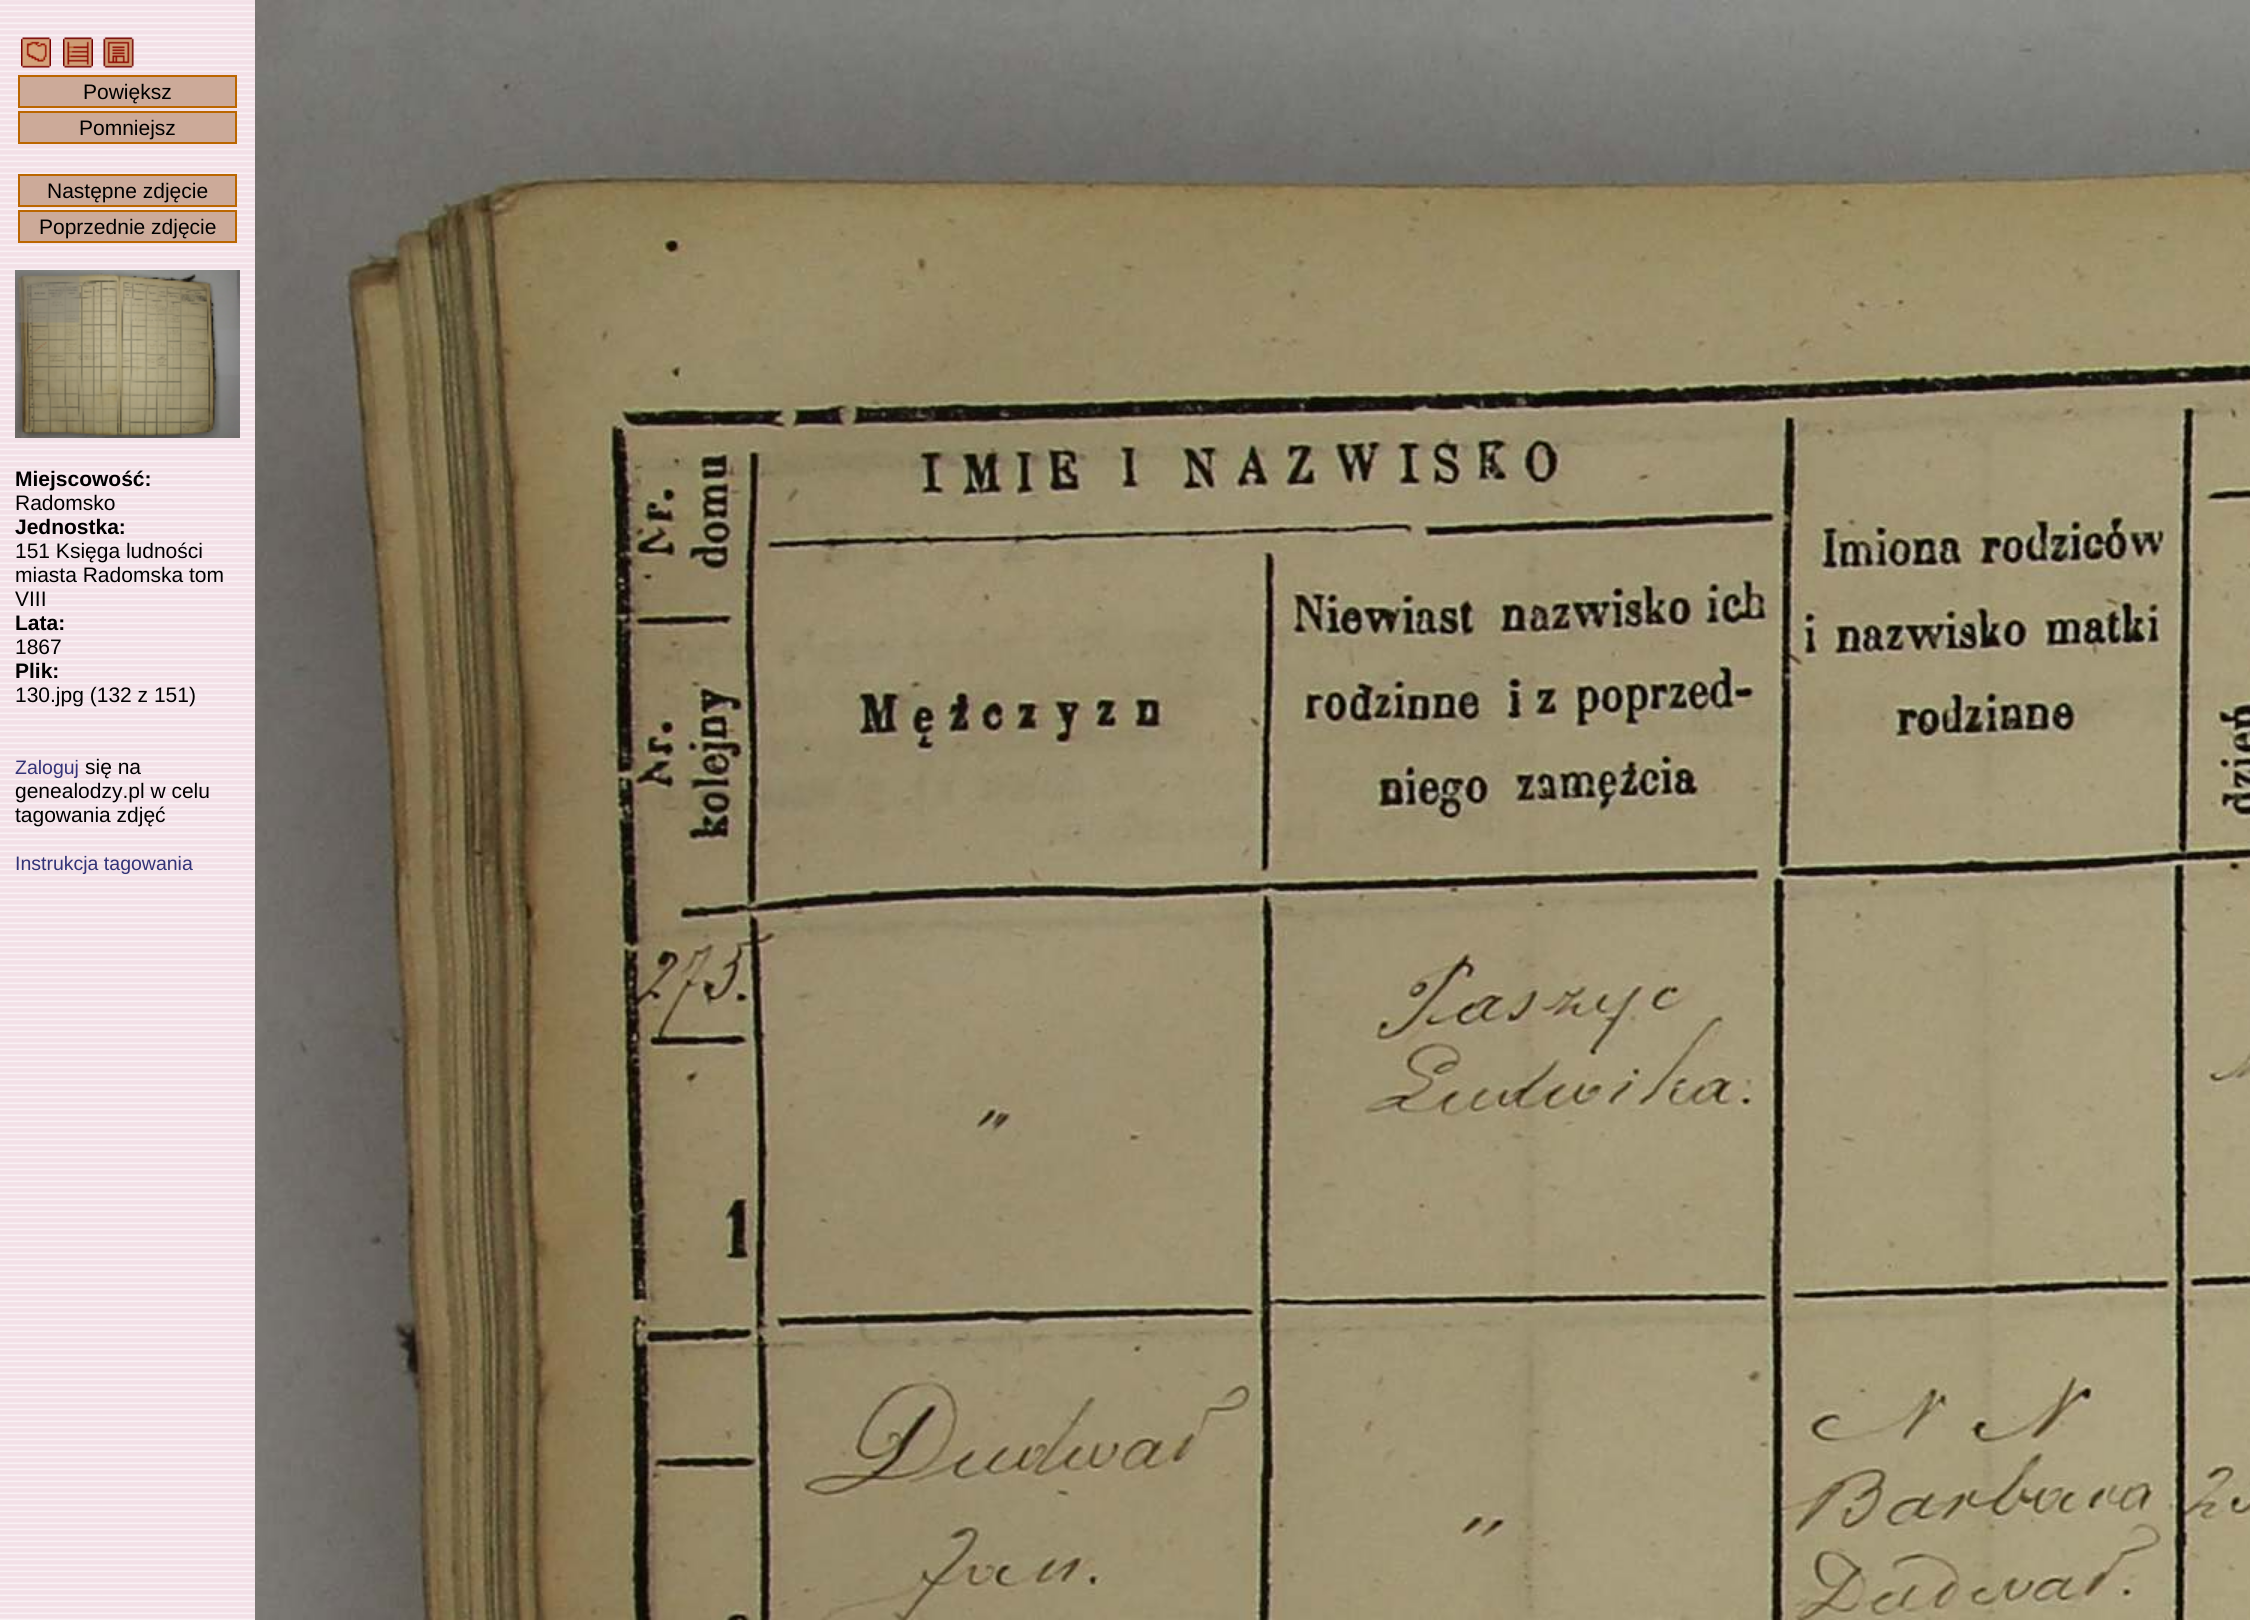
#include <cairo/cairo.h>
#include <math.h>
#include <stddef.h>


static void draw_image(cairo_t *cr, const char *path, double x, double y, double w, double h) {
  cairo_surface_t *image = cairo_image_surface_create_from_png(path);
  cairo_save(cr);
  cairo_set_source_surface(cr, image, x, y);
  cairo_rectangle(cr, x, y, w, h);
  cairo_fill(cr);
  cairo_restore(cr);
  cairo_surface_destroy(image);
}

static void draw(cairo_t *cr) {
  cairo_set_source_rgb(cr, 1, 1, 1);
  cairo_paint(cr);
  draw_image(cr, "images/1.png", 0, 0, 255, 1620);
  draw_image(cr, "images/2.png", 21, 37, 30, 31);
  draw_image(cr, "images/3.png", 63, 37, 30, 31);
  draw_image(cr, "images/4.png", 103, 37, 31, 31);
  cairo_set_source_rgb(cr, 204 / 255.0, 170 / 255.0, 153 / 255.0);
  cairo_rectangle(cr, 19, 76, 217, 31);
  cairo_fill_preserve(cr);
  cairo_set_source_rgb(cr, 187 / 255.0, 102 / 255.0, 0);
  cairo_stroke(cr);
  cairo_set_source_rgb(cr, 204 / 255.0, 170 / 255.0, 153 / 255.0);
  cairo_rectangle(cr, 19, 112, 217, 31);
  cairo_fill_preserve(cr);
  cairo_set_source_rgb(cr, 187 / 255.0, 102 / 255.0, 0);
  cairo_stroke(cr);
  cairo_set_source_rgb(cr, 204 / 255.0, 170 / 255.0, 153 / 255.0);
  cairo_rectangle(cr, 19, 175, 217, 31);
  cairo_fill_preserve(cr);
  cairo_set_source_rgb(cr, 187 / 255.0, 102 / 255.0, 0);
  cairo_stroke(cr);
  cairo_set_source_rgb(cr, 204 / 255.0, 170 / 255.0, 153 / 255.0);
  cairo_rectangle(cr, 19, 211, 217, 31);
  cairo_fill_preserve(cr);
  cairo_set_source_rgb(cr, 187 / 255.0, 102 / 255.0, 0);
  cairo_stroke(cr);
  draw_image(cr, "images/5.png", 15, 270, 225, 168);
  draw_image(cr, "images/6.png", 255, 0, 1995, 1620);
  cairo_select_font_face(cr, "Liberation Sans", CAIRO_FONT_SLANT_NORMAL, CAIRO_FONT_WEIGHT_NORMAL);
  cairo_set_font_size(cr, 21);
  cairo_set_source_rgb(cr, 0, 0, 0);
  cairo_move_to(cr, 83, 99);
  cairo_show_text(cr, "Powiększ");
  cairo_move_to(cr, 79, 135);
  cairo_show_text(cr, "Pomniejsz");
  cairo_move_to(cr, 47, 198);
  cairo_show_text(cr, "Następne zdjęcie");
  cairo_move_to(cr, 39, 234);
  cairo_show_text(cr, "Poprzednie zdjęcie");
  cairo_select_font_face(cr, "Liberation Sans", CAIRO_FONT_SLANT_NORMAL, CAIRO_FONT_WEIGHT_BOLD);
  cairo_move_to(cr, 15, 486);
  cairo_show_text(cr, "Miejscowość:");
  cairo_select_font_face(cr, "Liberation Sans", CAIRO_FONT_SLANT_NORMAL, CAIRO_FONT_WEIGHT_NORMAL);
  cairo_move_to(cr, 15, 510);
  cairo_show_text(cr, "Radomsko");
  cairo_select_font_face(cr, "Liberation Sans", CAIRO_FONT_SLANT_NORMAL, CAIRO_FONT_WEIGHT_BOLD);
  cairo_move_to(cr, 15, 534);
  cairo_show_text(cr, "Jednostka:");
  cairo_select_font_face(cr, "Liberation Sans", CAIRO_FONT_SLANT_NORMAL, CAIRO_FONT_WEIGHT_NORMAL);
  cairo_move_to(cr, 15, 558);
  cairo_show_text(cr, "151 Księga ludności");
  cairo_move_to(cr, 15, 582);
  cairo_show_text(cr, "miasta Radomska tom");
  cairo_move_to(cr, 15, 606);
  cairo_show_text(cr, "VIII");
  cairo_select_font_face(cr, "Liberation Sans", CAIRO_FONT_SLANT_NORMAL, CAIRO_FONT_WEIGHT_BOLD);
  cairo_move_to(cr, 15, 630);
  cairo_show_text(cr, "Lata:");
  cairo_select_font_face(cr, "Liberation Sans", CAIRO_FONT_SLANT_NORMAL, CAIRO_FONT_WEIGHT_NORMAL);
  cairo_move_to(cr, 15, 654);
  cairo_show_text(cr, "1867");
  cairo_select_font_face(cr, "Liberation Sans", CAIRO_FONT_SLANT_NORMAL, CAIRO_FONT_WEIGHT_BOLD);
  cairo_move_to(cr, 15, 678);
  cairo_show_text(cr, "Plik:");
  cairo_select_font_face(cr, "Liberation Sans", CAIRO_FONT_SLANT_NORMAL, CAIRO_FONT_WEIGHT_NORMAL);
  cairo_move_to(cr, 15, 702);
  cairo_show_text(cr, "130.jpg (132 z 151)");
  cairo_set_font_size(cr, 19.5);
  cairo_set_source_rgb(cr, 51 / 255.0, 51 / 255.0, 119 / 255.0);
  cairo_move_to(cr, 15, 774);
  cairo_show_text(cr, "Zaloguj");
  cairo_set_font_size(cr, 21);
  cairo_set_source_rgb(cr, 0, 0, 0);
  cairo_move_to(cr, 85, 774);
  cairo_show_text(cr, "się na");
  cairo_move_to(cr, 15, 798);
  cairo_show_text(cr, "genealodzy.pl w celu");
  cairo_move_to(cr, 15, 822);
  cairo_show_text(cr, "tagowania zdjęć");
  cairo_set_font_size(cr, 19.5);
  cairo_set_source_rgb(cr, 51 / 255.0, 51 / 255.0, 119 / 255.0);
  cairo_move_to(cr, 15, 870);
  cairo_show_text(cr, "Instrukcja tagowania");
}

int main(void) {
  cairo_surface_t *surface = cairo_image_surface_create(CAIRO_FORMAT_RGB24, 2250, 1620);
  cairo_t *cr = cairo_create(surface);
  cairo_font_options_t *options = cairo_font_options_create();
  cairo_font_options_set_hint_metrics(options, CAIRO_HINT_METRICS_OFF);
  cairo_font_options_set_hint_style(options, CAIRO_HINT_STYLE_NONE);
  cairo_set_font_options(cr, options);
  cairo_set_miter_limit(cr, 4);
  draw(cr);
  cairo_surface_write_to_png(surface, "out.png");
  cairo_font_options_destroy(options);
  cairo_destroy(cr);
  cairo_surface_destroy(surface);
  return 0;
}
